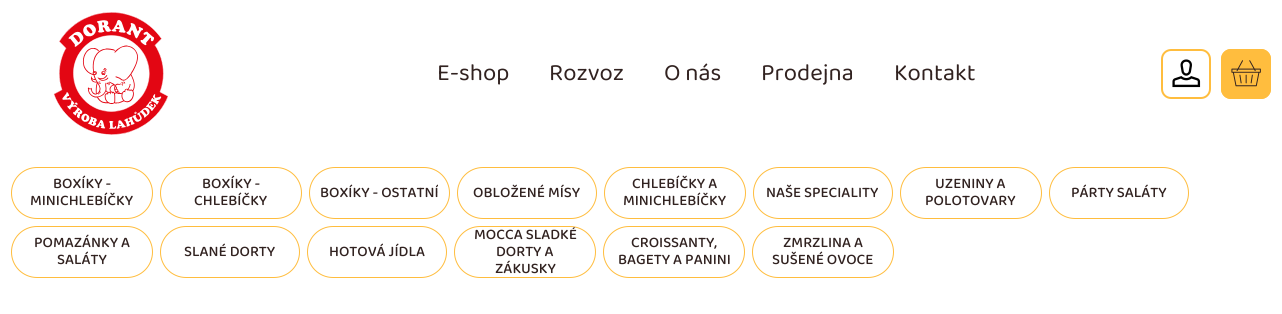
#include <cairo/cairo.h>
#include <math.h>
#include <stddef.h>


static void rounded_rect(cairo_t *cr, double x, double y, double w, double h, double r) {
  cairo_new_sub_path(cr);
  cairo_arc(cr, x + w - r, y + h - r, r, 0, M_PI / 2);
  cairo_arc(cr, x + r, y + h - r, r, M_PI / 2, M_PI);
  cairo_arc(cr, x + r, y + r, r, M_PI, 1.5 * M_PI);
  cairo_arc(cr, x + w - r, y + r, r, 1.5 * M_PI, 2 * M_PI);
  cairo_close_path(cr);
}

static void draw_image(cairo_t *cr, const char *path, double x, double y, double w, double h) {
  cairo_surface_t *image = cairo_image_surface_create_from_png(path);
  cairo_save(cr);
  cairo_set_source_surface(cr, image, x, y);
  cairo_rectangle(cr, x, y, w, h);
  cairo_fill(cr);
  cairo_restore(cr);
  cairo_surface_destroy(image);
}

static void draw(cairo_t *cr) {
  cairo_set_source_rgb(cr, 1, 1, 1);
  cairo_paint(cr);
  draw_image(cr, "images/1.png", 53, 12, 115, 123);
  draw_image(cr, "images/2.png", 1172, 59, 29, 29);
  rounded_rect(cr, 1162, 50, 48, 48, 9);
  cairo_set_source_rgb(cr, 1, 189 / 255.0, 62 / 255.0);
  cairo_stroke(cr);
  rounded_rect(cr, 1221, 49, 50, 50, 10);
  cairo_fill(cr);
  draw_image(cr, "images/3.png", 1231, 60, 30, 27);
  rounded_rect(cr, 1222, 50, 48, 48, 9);
  cairo_stroke(cr);
  rounded_rect(cr, 11.5, 167.5, 141, 51, 25.5);
  cairo_set_line_width(cr, 1);
  cairo_stroke(cr);
  rounded_rect(cr, 160.5, 167.5, 141, 51, 25.5);
  cairo_stroke(cr);
  rounded_rect(cr, 309.5, 167.5, 140, 51, 25.5);
  cairo_stroke(cr);
  rounded_rect(cr, 457.5, 167.5, 139, 51, 25.5);
  cairo_stroke(cr);
  rounded_rect(cr, 604.5, 167.5, 141, 51, 25.5);
  cairo_stroke(cr);
  rounded_rect(cr, 753.5, 167.5, 139, 51, 25.5);
  cairo_stroke(cr);
  rounded_rect(cr, 900.5, 167.5, 141, 51, 25.5);
  cairo_stroke(cr);
  rounded_rect(cr, 1049.5, 167.5, 139, 51, 25.5);
  cairo_stroke(cr);
  rounded_rect(cr, 11.5, 226.5, 141, 51, 25.5);
  cairo_stroke(cr);
  rounded_rect(cr, 160.5, 226.5, 139, 51, 25.5);
  cairo_stroke(cr);
  rounded_rect(cr, 307.5, 226.5, 139, 51, 25.5);
  cairo_stroke(cr);
  rounded_rect(cr, 454.5, 226.5, 141, 51, 25.5);
  cairo_stroke(cr);
  rounded_rect(cr, 603.5, 226.5, 141, 51, 25.5);
  cairo_stroke(cr);
  rounded_rect(cr, 752.5, 226.5, 141, 51, 25.5);
  cairo_stroke(cr);
  cairo_select_font_face(cr, "Baloo 2", CAIRO_FONT_SLANT_NORMAL, CAIRO_FONT_WEIGHT_NORMAL);
  cairo_set_font_size(cr, 24);
  cairo_set_source_rgb(cr, 49 / 255.0, 34 / 255.0, 32 / 255.0);
  cairo_move_to(cr, 437, 80);
  cairo_show_text(cr, "E-shop");
  cairo_move_to(cr, 549, 80);
  cairo_show_text(cr, "Rozvoz");
  cairo_move_to(cr, 664, 80);
  cairo_show_text(cr, "O nás");
  cairo_move_to(cr, 761, 80);
  cairo_show_text(cr, "Prodejna");
  cairo_move_to(cr, 894, 80);
  cairo_show_text(cr, "Kontakt");
  cairo_select_font_face(cr, "Baloo 2 Medium", CAIRO_FONT_SLANT_NORMAL, CAIRO_FONT_WEIGHT_NORMAL);
  cairo_set_font_size(cr, 15);
  cairo_move_to(cr, 53, 188);
  cairo_show_text(cr, "BOXÍKY -");
  cairo_move_to(cr, 30, 205);
  cairo_show_text(cr, "MINICHLEBÍČKY");
  cairo_move_to(cr, 202, 188);
  cairo_show_text(cr, "BOXÍKY -");
  cairo_move_to(cr, 194, 205);
  cairo_show_text(cr, "CHLEBÍČKY");
  cairo_move_to(cr, 320, 197);
  cairo_show_text(cr, "BOXÍKY - OSTATNÍ");
  cairo_move_to(cr, 473, 197);
  cairo_show_text(cr, "OBLOŽENÉ MÍSY");
  cairo_move_to(cr, 632, 188);
  cairo_show_text(cr, "CHLEBÍČKY A");
  cairo_move_to(cr, 623, 205);
  cairo_show_text(cr, "MINICHLEBÍČKY");
  cairo_move_to(cr, 766, 197);
  cairo_show_text(cr, "NAŠE SPECIALITY");
  cairo_move_to(cr, 935, 188);
  cairo_show_text(cr, "UZENINY A");
  cairo_move_to(cr, 925, 205);
  cairo_show_text(cr, "POLOTOVARY");
  cairo_move_to(cr, 1071, 197);
  cairo_show_text(cr, "PÁRTY SALÁTY");
  cairo_move_to(cr, 34, 247);
  cairo_show_text(cr, "POMAZÁNKY A");
  cairo_move_to(cr, 57, 264);
  cairo_show_text(cr, "SALÁTY");
  cairo_move_to(cr, 184, 256);
  cairo_show_text(cr, "SLANÉ DORTY");
  cairo_move_to(cr, 329, 256);
  cairo_show_text(cr, "HOTOVÁ JÍDLA");
  cairo_save(cr);
  rounded_rect(cr, 455, 227, 140, 50, 25);
  cairo_clip(cr);
  cairo_move_to(cr, 474, 239);
  cairo_show_text(cr, "MOCCA SLADKÉ");
  cairo_restore(cr);
  cairo_move_to(cr, 496, 256);
  cairo_show_text(cr, "DORTY A");
  cairo_move_to(cr, 495, 273);
  cairo_show_text(cr, "ZÁKUSKY");
  cairo_move_to(cr, 631, 247);
  cairo_show_text(cr, "CROISSANTY,");
  cairo_move_to(cr, 618, 264);
  cairo_show_text(cr, "BAGETY A PANINI");
  cairo_move_to(cr, 783, 247);
  cairo_show_text(cr, "ZMRZLINA A");
  cairo_move_to(cr, 772, 264);
  cairo_show_text(cr, "SUŠENÉ OVOCE");
}

int main(void) {
  cairo_surface_t *surface = cairo_image_surface_create(CAIRO_FORMAT_RGB24, 1282, 314);
  cairo_t *cr = cairo_create(surface);
  cairo_font_options_t *options = cairo_font_options_create();
  cairo_font_options_set_hint_metrics(options, CAIRO_HINT_METRICS_OFF);
  cairo_font_options_set_hint_style(options, CAIRO_HINT_STYLE_NONE);
  cairo_set_font_options(cr, options);
  cairo_set_miter_limit(cr, 4);
  draw(cr);
  cairo_surface_write_to_png(surface, "out.png");
  cairo_font_options_destroy(options);
  cairo_destroy(cr);
  cairo_surface_destroy(surface);
  return 0;
}
